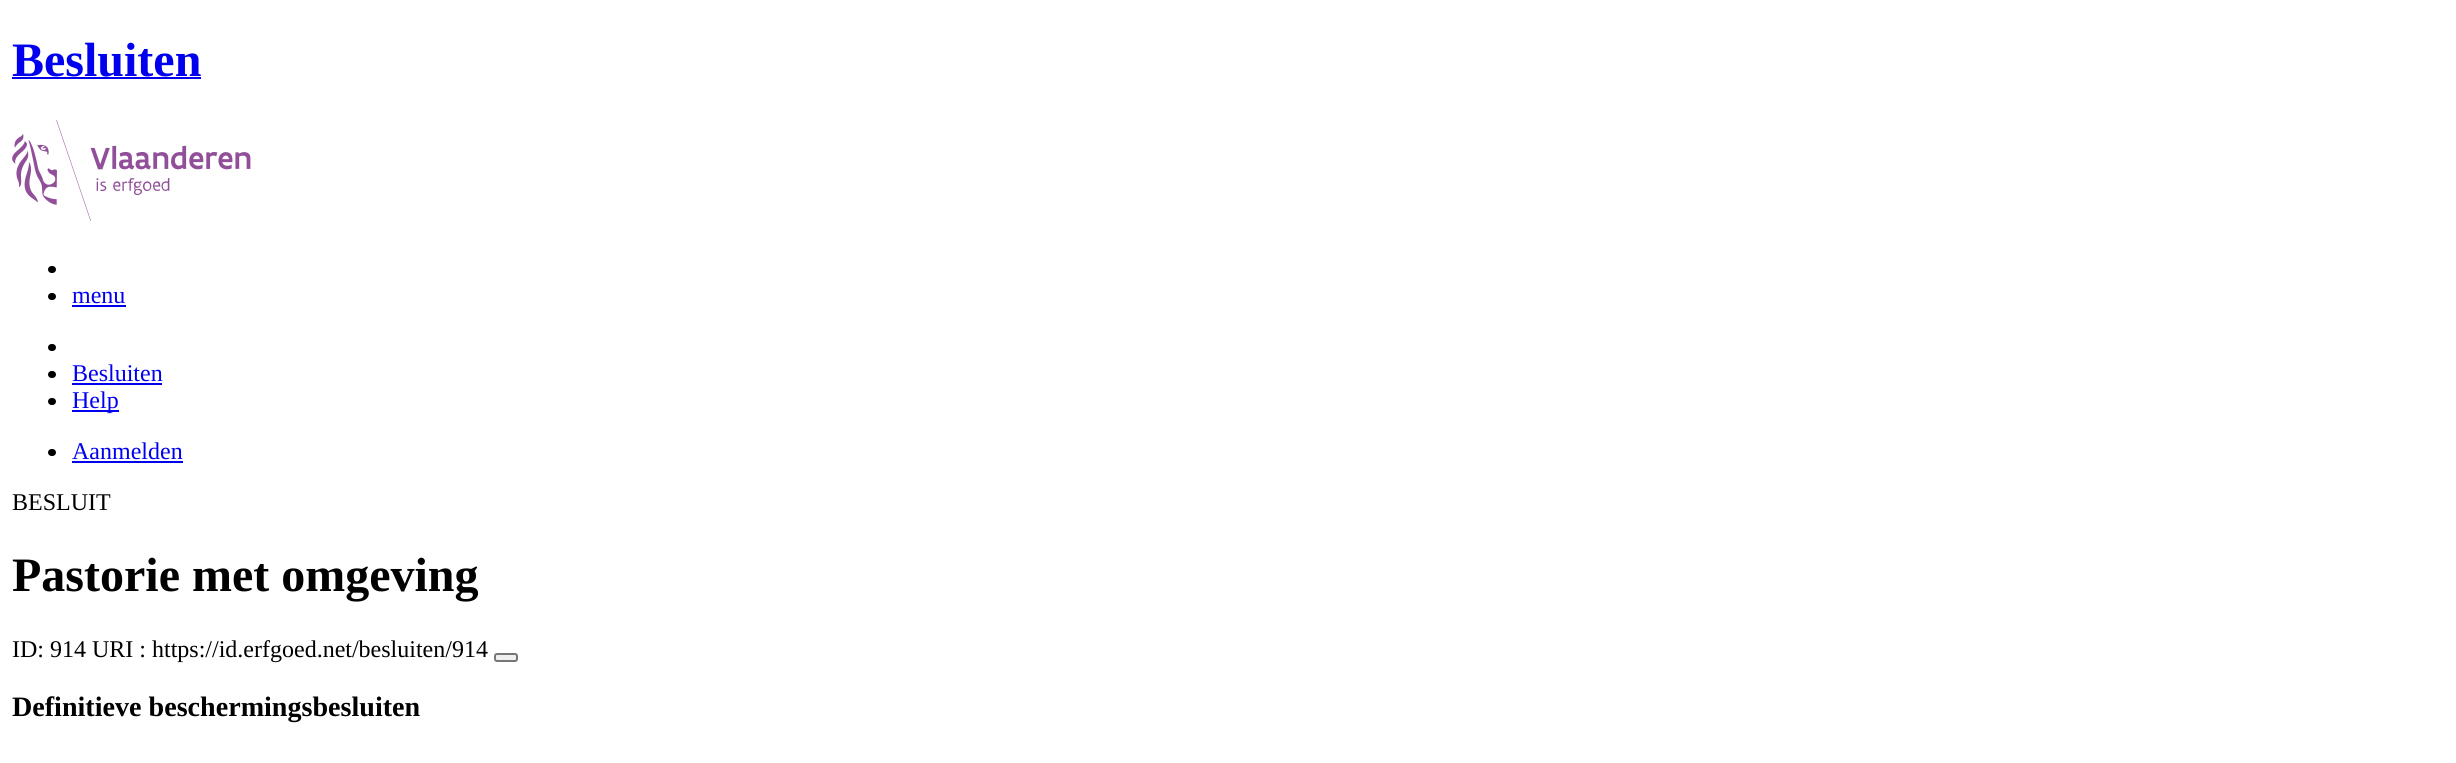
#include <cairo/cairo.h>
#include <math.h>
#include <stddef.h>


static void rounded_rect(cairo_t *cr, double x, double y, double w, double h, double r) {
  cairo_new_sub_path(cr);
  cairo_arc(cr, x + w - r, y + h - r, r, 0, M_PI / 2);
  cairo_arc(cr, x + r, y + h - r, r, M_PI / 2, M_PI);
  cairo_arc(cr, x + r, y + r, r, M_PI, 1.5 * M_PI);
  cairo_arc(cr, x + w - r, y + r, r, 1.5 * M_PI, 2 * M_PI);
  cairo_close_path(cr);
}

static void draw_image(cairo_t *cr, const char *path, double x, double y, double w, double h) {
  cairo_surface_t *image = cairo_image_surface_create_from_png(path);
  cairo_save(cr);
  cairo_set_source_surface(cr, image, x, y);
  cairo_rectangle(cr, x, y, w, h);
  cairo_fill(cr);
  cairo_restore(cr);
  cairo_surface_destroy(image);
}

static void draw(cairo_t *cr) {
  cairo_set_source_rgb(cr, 1, 1, 1);
  cairo_paint(cr);
  cairo_set_source_rgb(cr, 0, 0, 238 / 255.0);
  cairo_rectangle(cr, 12, 77, 189, 2);
  cairo_fill(cr);
  draw_image(cr, "images/1.png", 12, 120, 239, 101);
  cairo_set_source_rgb(cr, 0, 0, 0);
  rounded_rect(cr, 48, 266, 8, 7, 3.5);
  cairo_fill(cr);
  rounded_rect(cr, 48, 293, 8, 7, 3.5);
  cairo_fill(cr);
  cairo_set_source_rgb(cr, 0, 0, 238 / 255.0);
  cairo_rectangle(cr, 72, 305, 54, 2);
  cairo_fill(cr);
  cairo_set_source_rgb(cr, 0, 0, 0);
  rounded_rect(cr, 48, 344, 8, 7, 3.5);
  cairo_fill(cr);
  rounded_rect(cr, 48, 371, 8, 7, 3.5);
  cairo_fill(cr);
  cairo_set_source_rgb(cr, 0, 0, 238 / 255.0);
  cairo_rectangle(cr, 72, 383, 90, 2);
  cairo_fill(cr);
  cairo_set_source_rgb(cr, 0, 0, 0);
  rounded_rect(cr, 48, 398, 8, 7, 3.5);
  cairo_fill(cr);
  cairo_set_source_rgb(cr, 0, 0, 238 / 255.0);
  cairo_rectangle(cr, 72, 410, 47, 2);
  cairo_fill(cr);
  cairo_set_source_rgb(cr, 0, 0, 0);
  rounded_rect(cr, 48, 449, 8, 7, 3.5);
  cairo_fill(cr);
  cairo_set_source_rgb(cr, 0, 0, 238 / 255.0);
  cairo_rectangle(cr, 72, 461, 111, 2);
  cairo_fill(cr);
  cairo_set_source_rgb(cr, 239 / 255.0, 239 / 255.0, 239 / 255.0);
  rounded_rect(cr, 495, 654, 22, 7, 2);
  cairo_fill_preserve(cr);
  cairo_set_source_rgb(cr, 118 / 255.0, 118 / 255.0, 118 / 255.0);
  cairo_stroke(cr);
  cairo_select_font_face(cr, "Liberation Serif", CAIRO_FONT_SLANT_NORMAL, CAIRO_FONT_WEIGHT_BOLD);
  cairo_set_font_size(cr, 48);
  cairo_set_source_rgb(cr, 0, 0, 238 / 255.0);
  cairo_move_to(cr, 12, 76);
  cairo_show_text(cr, "Besluiten");
  cairo_select_font_face(cr, "Liberation Serif", CAIRO_FONT_SLANT_NORMAL, CAIRO_FONT_WEIGHT_NORMAL);
  cairo_set_font_size(cr, 24);
  cairo_move_to(cr, 72, 303);
  cairo_show_text(cr, "menu");
  cairo_move_to(cr, 72, 381);
  cairo_show_text(cr, "Besluiten");
  cairo_move_to(cr, 72, 408);
  cairo_show_text(cr, "Help");
  cairo_move_to(cr, 72, 459);
  cairo_show_text(cr, "Aanmelden");
  cairo_set_source_rgb(cr, 0, 0, 0);
  cairo_move_to(cr, 12, 510);
  cairo_show_text(cr, "BESLUIT");
  cairo_select_font_face(cr, "Liberation Serif", CAIRO_FONT_SLANT_NORMAL, CAIRO_FONT_WEIGHT_BOLD);
  cairo_set_font_size(cr, 48);
  cairo_move_to(cr, 12, 591);
  cairo_show_text(cr, "Pastorie met omgeving");
  cairo_select_font_face(cr, "Liberation Serif", CAIRO_FONT_SLANT_NORMAL, CAIRO_FONT_WEIGHT_NORMAL);
  cairo_set_font_size(cr, 24);
  cairo_move_to(cr, 12, 657);
  cairo_show_text(cr, "ID: 914 URI : https://id.erfgoed.net/besluiten/914");
  cairo_select_font_face(cr, "Liberation Serif", CAIRO_FONT_SLANT_NORMAL, CAIRO_FONT_WEIGHT_BOLD);
  cairo_set_font_size(cr, 28.1);
  cairo_move_to(cr, 12, 716);
  cairo_show_text(cr, "Definitieve beschermingsbesluiten");
}

int main(void) {
  cairo_surface_t *surface = cairo_image_surface_create(CAIRO_FORMAT_RGB24, 2456, 763);
  cairo_t *cr = cairo_create(surface);
  cairo_font_options_t *options = cairo_font_options_create();
  cairo_font_options_set_hint_metrics(options, CAIRO_HINT_METRICS_OFF);
  cairo_font_options_set_hint_style(options, CAIRO_HINT_STYLE_NONE);
  cairo_set_font_options(cr, options);
  cairo_set_miter_limit(cr, 4);
  draw(cr);
  cairo_surface_write_to_png(surface, "out.png");
  cairo_font_options_destroy(options);
  cairo_destroy(cr);
  cairo_surface_destroy(surface);
  return 0;
}
